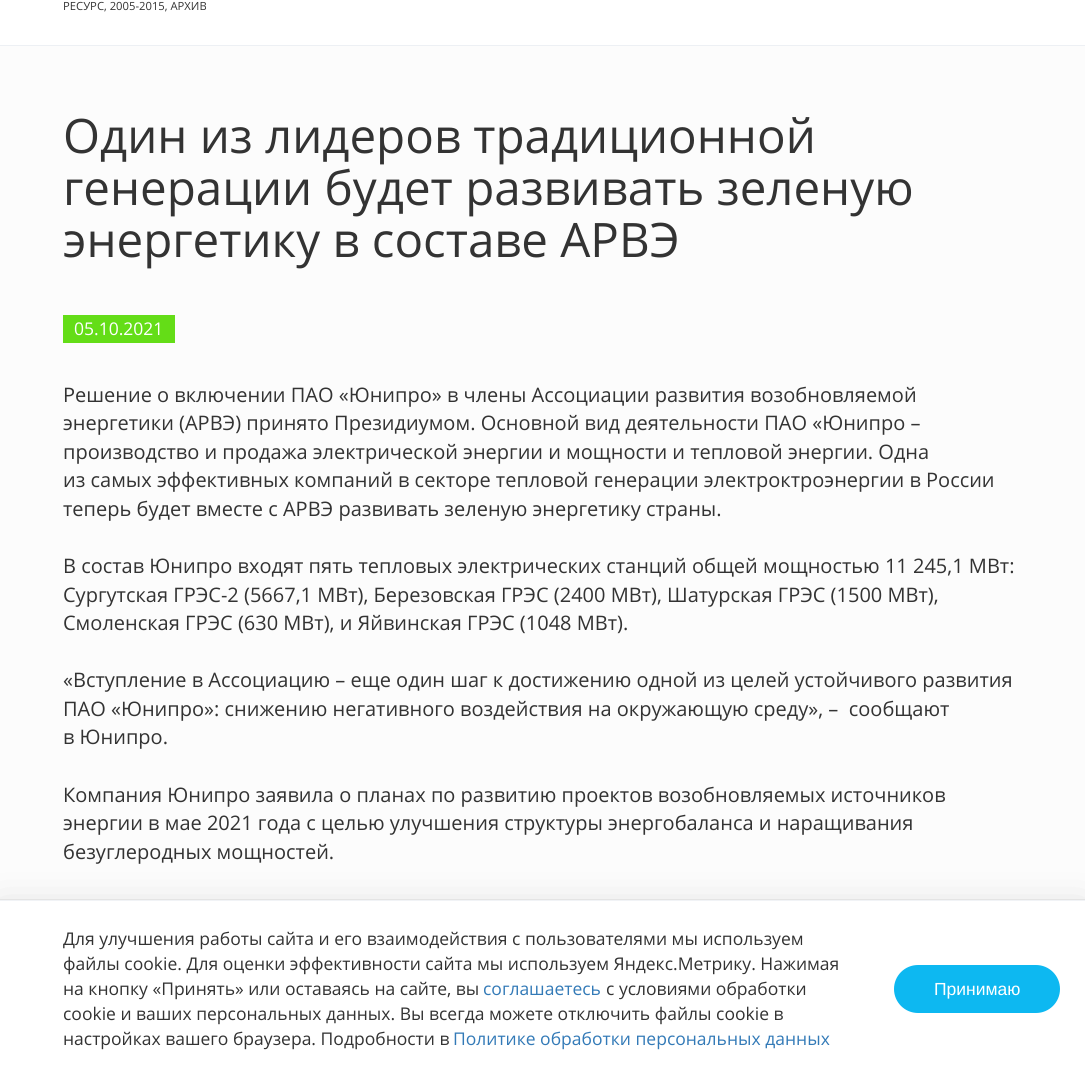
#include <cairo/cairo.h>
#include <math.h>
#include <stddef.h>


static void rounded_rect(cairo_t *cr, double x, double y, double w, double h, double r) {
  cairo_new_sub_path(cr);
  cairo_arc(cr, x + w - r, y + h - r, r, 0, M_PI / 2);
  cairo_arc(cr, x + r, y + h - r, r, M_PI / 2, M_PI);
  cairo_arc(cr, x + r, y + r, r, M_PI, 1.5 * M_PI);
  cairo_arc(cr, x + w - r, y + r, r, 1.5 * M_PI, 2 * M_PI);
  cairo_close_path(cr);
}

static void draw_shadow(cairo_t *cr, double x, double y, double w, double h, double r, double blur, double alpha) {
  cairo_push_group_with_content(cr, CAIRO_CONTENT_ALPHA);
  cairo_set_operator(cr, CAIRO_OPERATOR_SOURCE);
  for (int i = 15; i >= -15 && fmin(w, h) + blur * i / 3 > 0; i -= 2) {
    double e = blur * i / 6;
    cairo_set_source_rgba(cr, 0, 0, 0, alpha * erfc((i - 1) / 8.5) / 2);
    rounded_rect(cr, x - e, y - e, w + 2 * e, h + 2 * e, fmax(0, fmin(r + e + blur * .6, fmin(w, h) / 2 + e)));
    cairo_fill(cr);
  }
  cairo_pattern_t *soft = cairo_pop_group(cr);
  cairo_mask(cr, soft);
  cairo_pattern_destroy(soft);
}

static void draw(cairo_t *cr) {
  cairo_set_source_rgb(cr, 252 / 255.0, 252 / 255.0, 252 / 255.0);
  cairo_paint(cr);
  cairo_set_source_rgb(cr, 1, 1, 1);
  cairo_rectangle(cr, 0, 0, 1085, 45);
  cairo_fill(cr);
  cairo_set_source_rgb(cr, 237 / 255.0, 240 / 255.0, 244 / 255.0);
  cairo_rectangle(cr, 0, 45, 1085, 1);
  cairo_fill(cr);
  cairo_set_source_rgb(cr, 100 / 255.0, 221 / 255.0, 23 / 255.0);
  cairo_rectangle(cr, 63, 315, 112, 28);
  cairo_fill(cr);
  cairo_rectangle(cr, -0.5, 899.5, 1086, 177);
  cairo_set_source_rgb(cr, 237 / 255.0, 237 / 255.0, 237 / 255.0);
  cairo_set_line_width(cr, 1);
  cairo_stroke(cr);
  cairo_set_source_rgb(cr, 0, 0, 0);
  draw_shadow(cr, 0, 913, 1085, 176, 0, 22.5, 0.16);
  cairo_set_source_rgb(cr, 1, 1, 1);
  cairo_rectangle(cr, 0, 901, 1085, 175);
  cairo_fill(cr);
  cairo_set_source_rgb(cr, 241 / 255.0, 243 / 255.0, 246 / 255.0);
  cairo_rectangle(cr, 0, 900, 1085, 1);
  cairo_fill(cr);
  cairo_set_source_rgb(cr, 13 / 255.0, 184 / 255.0, 241 / 255.0);
  rounded_rect(cr, 895.5, 966.5, 163, 45, 22.5);
  cairo_fill_preserve(cr);
  cairo_set_line_width(cr, 3);
  cairo_stroke(cr);
  cairo_select_font_face(cr, "Open Sans", CAIRO_FONT_SLANT_NORMAL, CAIRO_FONT_WEIGHT_NORMAL);
  cairo_set_font_size(cr, 11.25);
  cairo_set_source_rgb(cr, 51 / 255.0, 51 / 255.0, 51 / 255.0);
  cairo_move_to(cr, 63, 10);
  cairo_show_text(cr, "РЕСУРС, 2005-2015, АРХИВ");
  cairo_set_font_size(cr, 47.5);
  cairo_move_to(cr, 63, 153);
  cairo_show_text(cr, "Один из лидеров традиционной");
  cairo_move_to(cr, 63, 205);
  cairo_show_text(cr, "генерации будет развивать зеленую");
  cairo_move_to(cr, 63, 257);
  cairo_show_text(cr, "энергетику в составе АРВЭ");
  cairo_set_font_size(cr, 17.5);
  cairo_set_source_rgb(cr, 1, 1, 1);
  cairo_move_to(cr, 74, 335);
  cairo_show_text(cr, "05.10.2021");
  cairo_set_font_size(cr, 20);
  cairo_set_source_rgb(cr, 51 / 255.0, 51 / 255.0, 51 / 255.0);
  cairo_move_to(cr, 63, 402);
  cairo_show_text(cr, "Решение о включении ПАО «Юнипро» в члены Ассоциации развития возобновляемой");
  cairo_move_to(cr, 63, 430);
  cairo_show_text(cr, "энергетики (АРВЭ) принято Президиумом. Основной вид деятельности ПАО «Юнипро –");
  cairo_move_to(cr, 63, 459);
  cairo_show_text(cr, "производство и продажа электрической энергии и мощности и тепловой энергии. Одна");
  cairo_move_to(cr, 63, 487);
  cairo_show_text(cr, "из самых эффективных компаний в секторе тепловой генерации электроктроэнергии в России");
  cairo_move_to(cr, 63, 516);
  cairo_show_text(cr, "теперь будет вместе с АРВЭ развивать зеленую энергетику страны.");
  cairo_move_to(cr, 63, 573);
  cairo_show_text(cr, "В состав Юнипро входят пять тепловых электрических станций общей мощностью 11 245,1 МВт:");
  cairo_move_to(cr, 63, 602);
  cairo_show_text(cr, "Сургутская ГРЭС-2 (5667,1 МВт), Березовская ГРЭС (2400 МВт), Шатурская ГРЭС (1500 МВт),");
  cairo_move_to(cr, 63, 630);
  cairo_show_text(cr, "Смоленская ГРЭС (630 МВт), и Яйвинская ГРЭС (1048 МВт).");
  cairo_move_to(cr, 63, 687);
  cairo_show_text(cr, "«Вступление в Ассоциацию – еще один шаг к достижению одной из целей устойчивого развития");
  cairo_move_to(cr, 63, 716);
  cairo_show_text(cr, "ПАО «Юнипро»: снижению негативного воздействия на окружающую среду», –  сообщают");
  cairo_move_to(cr, 63, 744);
  cairo_show_text(cr, "в Юнипро.");
  cairo_move_to(cr, 63, 802);
  cairo_show_text(cr, "Компания Юнипро заявила о планах по развитию проектов возобновляемых источников");
  cairo_move_to(cr, 63, 830);
  cairo_show_text(cr, "энергии в мае 2021 года с целью улучшения структуры энергобаланса и наращивания");
  cairo_move_to(cr, 63, 859);
  cairo_show_text(cr, "безуглеродных мощностей.");
  cairo_set_font_size(cr, 17.5);
  cairo_move_to(cr, 63, 945);
  cairo_show_text(cr, "Для улучшения работы сайта и его взаимодействия с пользователями мы используем");
  cairo_move_to(cr, 63, 970);
  cairo_show_text(cr, "файлы cookie. Для оценки эффективности сайта мы используем Яндекс.Метрику. Нажимая");
  cairo_move_to(cr, 63, 995);
  cairo_show_text(cr, "на кнопку «Принять» или оставаясь на сайте, вы");
  cairo_set_source_rgb(cr, 51 / 255.0, 122 / 255.0, 183 / 255.0);
  cairo_move_to(cr, 483, 995);
  cairo_show_text(cr, "соглашаетесь");
  cairo_set_source_rgb(cr, 51 / 255.0, 51 / 255.0, 51 / 255.0);
  cairo_move_to(cr, 606, 995);
  cairo_show_text(cr, "с условиями обработки");
  cairo_move_to(cr, 63, 1020);
  cairo_show_text(cr, "cookie и ваших персональных данных. Вы всегда можете отключить файлы cookie в");
  cairo_move_to(cr, 63, 1045);
  cairo_show_text(cr, "настройках вашего браузера. Подробности в");
  cairo_set_source_rgb(cr, 51 / 255.0, 122 / 255.0, 183 / 255.0);
  cairo_move_to(cr, 453, 1045);
  cairo_show_text(cr, "Политике обработки персональных данных");
  cairo_select_font_face(cr, "Liberation Sans", CAIRO_FONT_SLANT_NORMAL, CAIRO_FONT_WEIGHT_NORMAL);
  cairo_set_source_rgb(cr, 1, 1, 1);
  cairo_move_to(cr, 934, 995);
  cairo_show_text(cr, "Принимаю");
}

int main(void) {
  cairo_surface_t *surface = cairo_image_surface_create(CAIRO_FORMAT_RGB24, 1085, 1076);
  cairo_t *cr = cairo_create(surface);
  cairo_font_options_t *options = cairo_font_options_create();
  cairo_font_options_set_hint_metrics(options, CAIRO_HINT_METRICS_OFF);
  cairo_font_options_set_hint_style(options, CAIRO_HINT_STYLE_NONE);
  cairo_set_font_options(cr, options);
  cairo_set_miter_limit(cr, 4);
  draw(cr);
  cairo_surface_write_to_png(surface, "out.png");
  cairo_font_options_destroy(options);
  cairo_destroy(cr);
  cairo_surface_destroy(surface);
  return 0;
}
